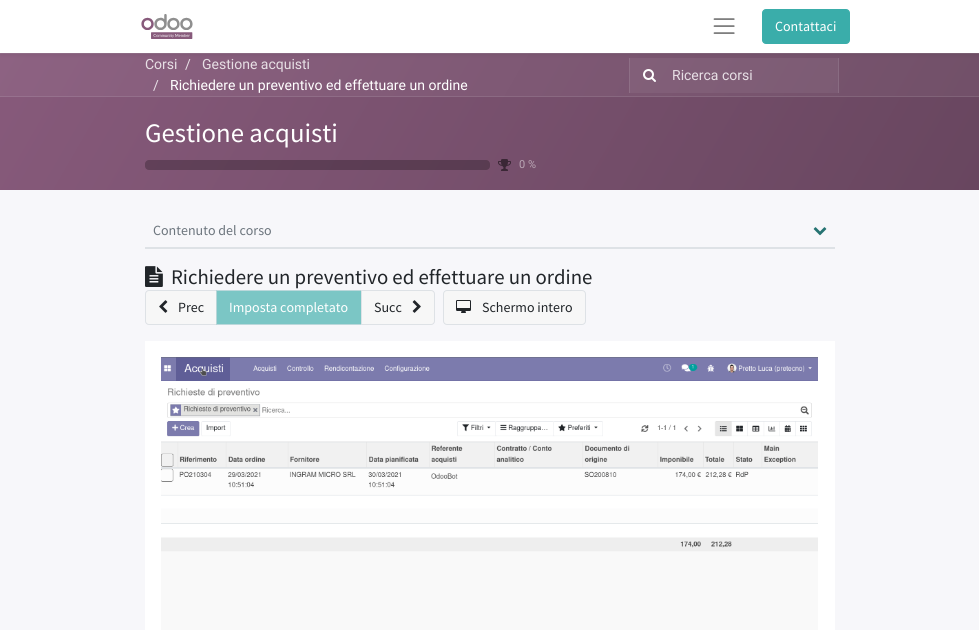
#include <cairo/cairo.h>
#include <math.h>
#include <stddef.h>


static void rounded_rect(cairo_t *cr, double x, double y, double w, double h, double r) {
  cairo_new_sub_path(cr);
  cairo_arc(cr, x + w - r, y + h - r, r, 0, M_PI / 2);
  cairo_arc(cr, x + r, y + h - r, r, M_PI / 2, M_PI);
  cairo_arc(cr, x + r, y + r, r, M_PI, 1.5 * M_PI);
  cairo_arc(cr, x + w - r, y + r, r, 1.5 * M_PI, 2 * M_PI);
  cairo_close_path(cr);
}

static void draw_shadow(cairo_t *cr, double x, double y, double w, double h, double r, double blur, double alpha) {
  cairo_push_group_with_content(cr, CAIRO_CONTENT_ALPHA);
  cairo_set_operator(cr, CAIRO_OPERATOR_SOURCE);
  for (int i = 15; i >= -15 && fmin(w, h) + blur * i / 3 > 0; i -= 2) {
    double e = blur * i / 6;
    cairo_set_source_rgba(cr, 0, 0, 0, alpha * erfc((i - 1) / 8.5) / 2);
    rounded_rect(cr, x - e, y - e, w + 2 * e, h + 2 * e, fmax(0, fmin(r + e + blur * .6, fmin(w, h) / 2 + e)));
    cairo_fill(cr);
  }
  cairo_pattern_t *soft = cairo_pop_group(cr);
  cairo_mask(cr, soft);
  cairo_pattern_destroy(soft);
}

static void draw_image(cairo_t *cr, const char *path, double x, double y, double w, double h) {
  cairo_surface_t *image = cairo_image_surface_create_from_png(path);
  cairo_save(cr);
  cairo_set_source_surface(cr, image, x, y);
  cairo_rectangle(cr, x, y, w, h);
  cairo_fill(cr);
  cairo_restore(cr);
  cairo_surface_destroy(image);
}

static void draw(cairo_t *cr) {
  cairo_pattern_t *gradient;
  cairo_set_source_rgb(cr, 247 / 255.0, 247 / 255.0, 250 / 255.0);
  cairo_paint(cr);
  gradient = cairo_pattern_create_linear(93, -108, 886, 351);
  cairo_pattern_add_color_stop_rgba(gradient, 0, 141 / 255.0, 98 / 255.0, 130 / 255.0, 1);
  cairo_pattern_add_color_stop_rgba(gradient, 1, 112 / 255.0, 79 / 255.0, 103 / 255.0, 1);
  cairo_set_source(cr, gradient);
  cairo_pattern_destroy(gradient);
  cairo_rectangle(cr, 0, 54, 979, 42);
  cairo_fill(cr);
  gradient = cairo_pattern_create_linear(93, -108, 886, 351);
  cairo_pattern_add_color_stop_rgba(gradient, 0, 147 / 255.0, 106 / 255.0, 136 / 255.0, 1);
  cairo_pattern_add_color_stop_rgba(gradient, 1, 119 / 255.0, 88 / 255.0, 111 / 255.0, 1);
  cairo_set_source(cr, gradient);
  cairo_pattern_destroy(gradient);
  cairo_rectangle(cr, 630, 58, 208, 35);
  cairo_fill(cr);
  gradient = cairo_pattern_create_linear(93, -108, 886, 351);
  cairo_pattern_add_color_stop_rgba(gradient, 0, 152 / 255.0, 114 / 255.0, 143 / 255.0, 1);
  cairo_pattern_add_color_stop_rgba(gradient, 1, 126 / 255.0, 97 / 255.0, 118 / 255.0, 1);
  cairo_set_source(cr, gradient);
  cairo_pattern_destroy(gradient);
  cairo_rectangle(cr, 0, 53, 979, 1);
  cairo_fill(cr);
  cairo_set_source_rgb(cr, 137 / 255.0, 108 / 255.0, 130 / 255.0);
  cairo_rectangle(cr, 838, 58, 1, 35);
  cairo_fill(cr);
  cairo_set_source_rgb(cr, 142 / 255.0, 111 / 255.0, 134 / 255.0);
  cairo_rectangle(cr, 629, 58, 1, 35);
  cairo_fill(cr);
  cairo_set_source_rgb(cr, 0, 0, 0);
  draw_shadow(cr, 0, 2, 979, 53, 0, 2, 0.07);
  cairo_set_source_rgb(cr, 1, 1, 1);
  cairo_rectangle(cr, 0, 0, 979, 53);
  cairo_fill(cr);
  draw_image(cr, "images/1.png", 141, 14, 52, 25);
  draw_image(cr, "images/2.png", 713, 18, 22, 16);
  cairo_set_source_rgb(cr, 58 / 255.0, 173 / 255.0, 170 / 255.0);
  rounded_rect(cr, 762.5, 9.5, 87, 34, 3.5);
  cairo_fill_preserve(cr);
  cairo_set_line_width(cr, 1);
  cairo_stroke(cr);
  gradient = cairo_pattern_create_linear(93, -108, 886, 351);
  cairo_pattern_add_color_stop_rgba(gradient, 0, 135 / 255.0, 90 / 255.0, 123 / 255.0, 1);
  cairo_pattern_add_color_stop_rgba(gradient, 1, 104 / 255.0, 70 / 255.0, 95 / 255.0, 1);
  cairo_set_source(cr, gradient);
  cairo_pattern_destroy(gradient);
  cairo_rectangle(cr, 0, 97, 979, 93);
  cairo_fill(cr);
  gradient = cairo_pattern_create_linear(93, -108, 886, 351);
  cairo_pattern_add_color_stop_rgba(gradient, 0, 152 / 255.0, 114 / 255.0, 143 / 255.0, 1);
  cairo_pattern_add_color_stop_rgba(gradient, 1, 126 / 255.0, 97 / 255.0, 118 / 255.0, 1);
  cairo_set_source(cr, gradient);
  cairo_pattern_destroy(gradient);
  cairo_rectangle(cr, 0, 96, 979, 1);
  cairo_fill(cr);
  draw_image(cr, "images/3.png", 643, 69, 13, 13);
  cairo_set_source_rgba(cr, 0, 0, 0, 0.25);
  rounded_rect(cr, 145, 160, 345, 10, 4);
  cairo_fill(cr);
  draw_image(cr, "images/4.png", 498, 159, 13, 12);
  cairo_set_source_rgb(cr, 222 / 255.0, 226 / 255.0, 230 / 255.0);
  cairo_rectangle(cr, 145, 247, 690, 2);
  cairo_fill(cr);
  draw_image(cr, "images/5.png", 813, 227, 14, 9);
  draw_image(cr, "images/6.png", 145, 266, 18, 21);
  cairo_set_source_rgb(cr, 247 / 255.0, 247 / 255.0, 247 / 255.0);
  cairo_new_path(cr);
  cairo_move_to(cr, 149, 290.5);
  cairo_line_to(cr, 216.5, 290.5);
  cairo_line_to(cr, 216.5, 324.5);
  cairo_line_to(cr, 149, 324.5);
  cairo_curve_to(cr, 147, 324.5, 145.5, 323, 145.5, 321);
  cairo_line_to(cr, 145.5, 294);
  cairo_curve_to(cr, 145.5, 292, 147, 290.5, 149, 290.5);
  cairo_close_path(cr);
  cairo_fill_preserve(cr);
  cairo_set_source_rgb(cr, 222 / 255.0, 226 / 255.0, 230 / 255.0);
  cairo_stroke(cr);
  draw_image(cr, "images/7.png", 159, 300, 9, 13);
  cairo_set_source_rgba(cr, 58 / 255.0, 173 / 255.0, 170 / 255.0, 0.65);
  cairo_rectangle(cr, 216, 290, 145, 35);
  cairo_fill(cr);
  cairo_rectangle(cr, 216.5, 290.5, 145, 34);
  cairo_set_source_rgba(cr, 222 / 255.0, 226 / 255.0, 230 / 255.0, 0.65);
  cairo_stroke(cr);
  cairo_set_source_rgb(cr, 247 / 255.0, 247 / 255.0, 247 / 255.0);
  cairo_new_path(cr);
  cairo_move_to(cr, 361.5, 290.5);
  cairo_line_to(cr, 431, 290.5);
  cairo_curve_to(cr, 433, 290.5, 434.5, 292, 434.5, 294);
  cairo_line_to(cr, 434.5, 321);
  cairo_curve_to(cr, 434.5, 323, 433, 324.5, 431, 324.5);
  cairo_line_to(cr, 361.5, 324.5);
  cairo_close_path(cr);
  cairo_fill_preserve(cr);
  cairo_set_source_rgb(cr, 222 / 255.0, 226 / 255.0, 230 / 255.0);
  cairo_stroke(cr);
  draw_image(cr, "images/8.png", 412, 300, 9, 13);
  cairo_set_source_rgb(cr, 247 / 255.0, 247 / 255.0, 247 / 255.0);
  rounded_rect(cr, 443.5, 290.5, 142, 34, 3.5);
  cairo_fill_preserve(cr);
  cairo_set_source_rgb(cr, 222 / 255.0, 226 / 255.0, 230 / 255.0);
  cairo_stroke(cr);
  draw_image(cr, "images/9.png", 456, 300, 15, 13);
  cairo_set_source_rgb(cr, 1, 1, 1);
  cairo_rectangle(cr, 145, 341, 690, 289);
  cairo_fill(cr);
  draw_image(cr, "images/10.png", 161, 357, 657, 273);
  cairo_select_font_face(cr, "Source Sans Pro", CAIRO_FONT_SLANT_NORMAL, CAIRO_FONT_WEIGHT_NORMAL);
  cairo_set_font_size(cr, 14);
  cairo_move_to(cr, 775, 31);
  cairo_show_text(cr, "Contattaci");
  cairo_select_font_face(cr, "Roboto", CAIRO_FONT_SLANT_NORMAL, CAIRO_FONT_WEIGHT_NORMAL);
  cairo_set_source_rgb(cr, 231 / 255.0, 223 / 255.0, 229 / 255.0);
  cairo_move_to(cr, 145, 69);
  cairo_show_text(cr, "Corsi");
  cairo_move_to(cr, 185, 69);
  cairo_show_text(cr, "/");
  cairo_move_to(cr, 202, 69);
  cairo_show_text(cr, "Gestione acquisti");
  cairo_move_to(cr, 153, 90);
  cairo_show_text(cr, "/");
  cairo_set_source_rgb(cr, 1, 1, 1);
  cairo_move_to(cr, 170, 90);
  cairo_show_text(cr, "Richiedere un preventivo ed effettuare un ordine");
  cairo_set_source_rgb(cr, 231 / 255.0, 223 / 255.0, 229 / 255.0);
  cairo_move_to(cr, 672, 80);
  cairo_show_text(cr, "Ricerca corsi");
  cairo_select_font_face(cr, "Source Sans Pro", CAIRO_FONT_SLANT_NORMAL, CAIRO_FONT_WEIGHT_NORMAL);
  cairo_set_font_size(cr, 26.75);
  cairo_set_source_rgb(cr, 1, 1, 1);
  cairo_move_to(cr, 145, 142);
  cairo_show_text(cr, "Gestione acquisti");
  cairo_select_font_face(cr, "Roboto", CAIRO_FONT_SLANT_NORMAL, CAIRO_FONT_WEIGHT_NORMAL);
  cairo_set_font_size(cr, 11);
  cairo_set_source_rgb(cr, 186 / 255.0, 167 / 255.0, 181 / 255.0);
  cairo_move_to(cr, 519, 168);
  cairo_show_text(cr, "0 %");
  cairo_select_font_face(cr, "Source Sans Pro", CAIRO_FONT_SLANT_NORMAL, CAIRO_FONT_WEIGHT_NORMAL);
  cairo_set_font_size(cr, 14);
  cairo_set_source_rgb(cr, 108 / 255.0, 117 / 255.0, 125 / 255.0);
  cairo_move_to(cr, 153, 235);
  cairo_show_text(cr, "Contenuto del corso");
  cairo_set_font_size(cr, 20.8);
  cairo_set_source_rgb(cr, 33 / 255.0, 37 / 255.0, 41 / 255.0);
  cairo_move_to(cr, 171, 284);
  cairo_show_text(cr, "Richiedere un preventivo ed effettuare un ordine");
  cairo_set_font_size(cr, 14);
  cairo_move_to(cr, 178, 312);
  cairo_show_text(cr, "Prec");
  cairo_set_source_rgb(cr, 1, 1, 1);
  cairo_move_to(cr, 229, 312);
  cairo_show_text(cr, "Imposta completato");
  cairo_set_source_rgb(cr, 33 / 255.0, 37 / 255.0, 41 / 255.0);
  cairo_move_to(cr, 374, 312);
  cairo_show_text(cr, "Succ");
  cairo_move_to(cr, 482, 312);
  cairo_show_text(cr, "Schermo intero");
}

int main(void) {
  cairo_surface_t *surface = cairo_image_surface_create(CAIRO_FORMAT_RGB24, 979, 630);
  cairo_t *cr = cairo_create(surface);
  cairo_font_options_t *options = cairo_font_options_create();
  cairo_font_options_set_hint_metrics(options, CAIRO_HINT_METRICS_OFF);
  cairo_font_options_set_hint_style(options, CAIRO_HINT_STYLE_NONE);
  cairo_set_font_options(cr, options);
  cairo_set_miter_limit(cr, 4);
  draw(cr);
  cairo_surface_write_to_png(surface, "out.png");
  cairo_font_options_destroy(options);
  cairo_destroy(cr);
  cairo_surface_destroy(surface);
  return 0;
}
